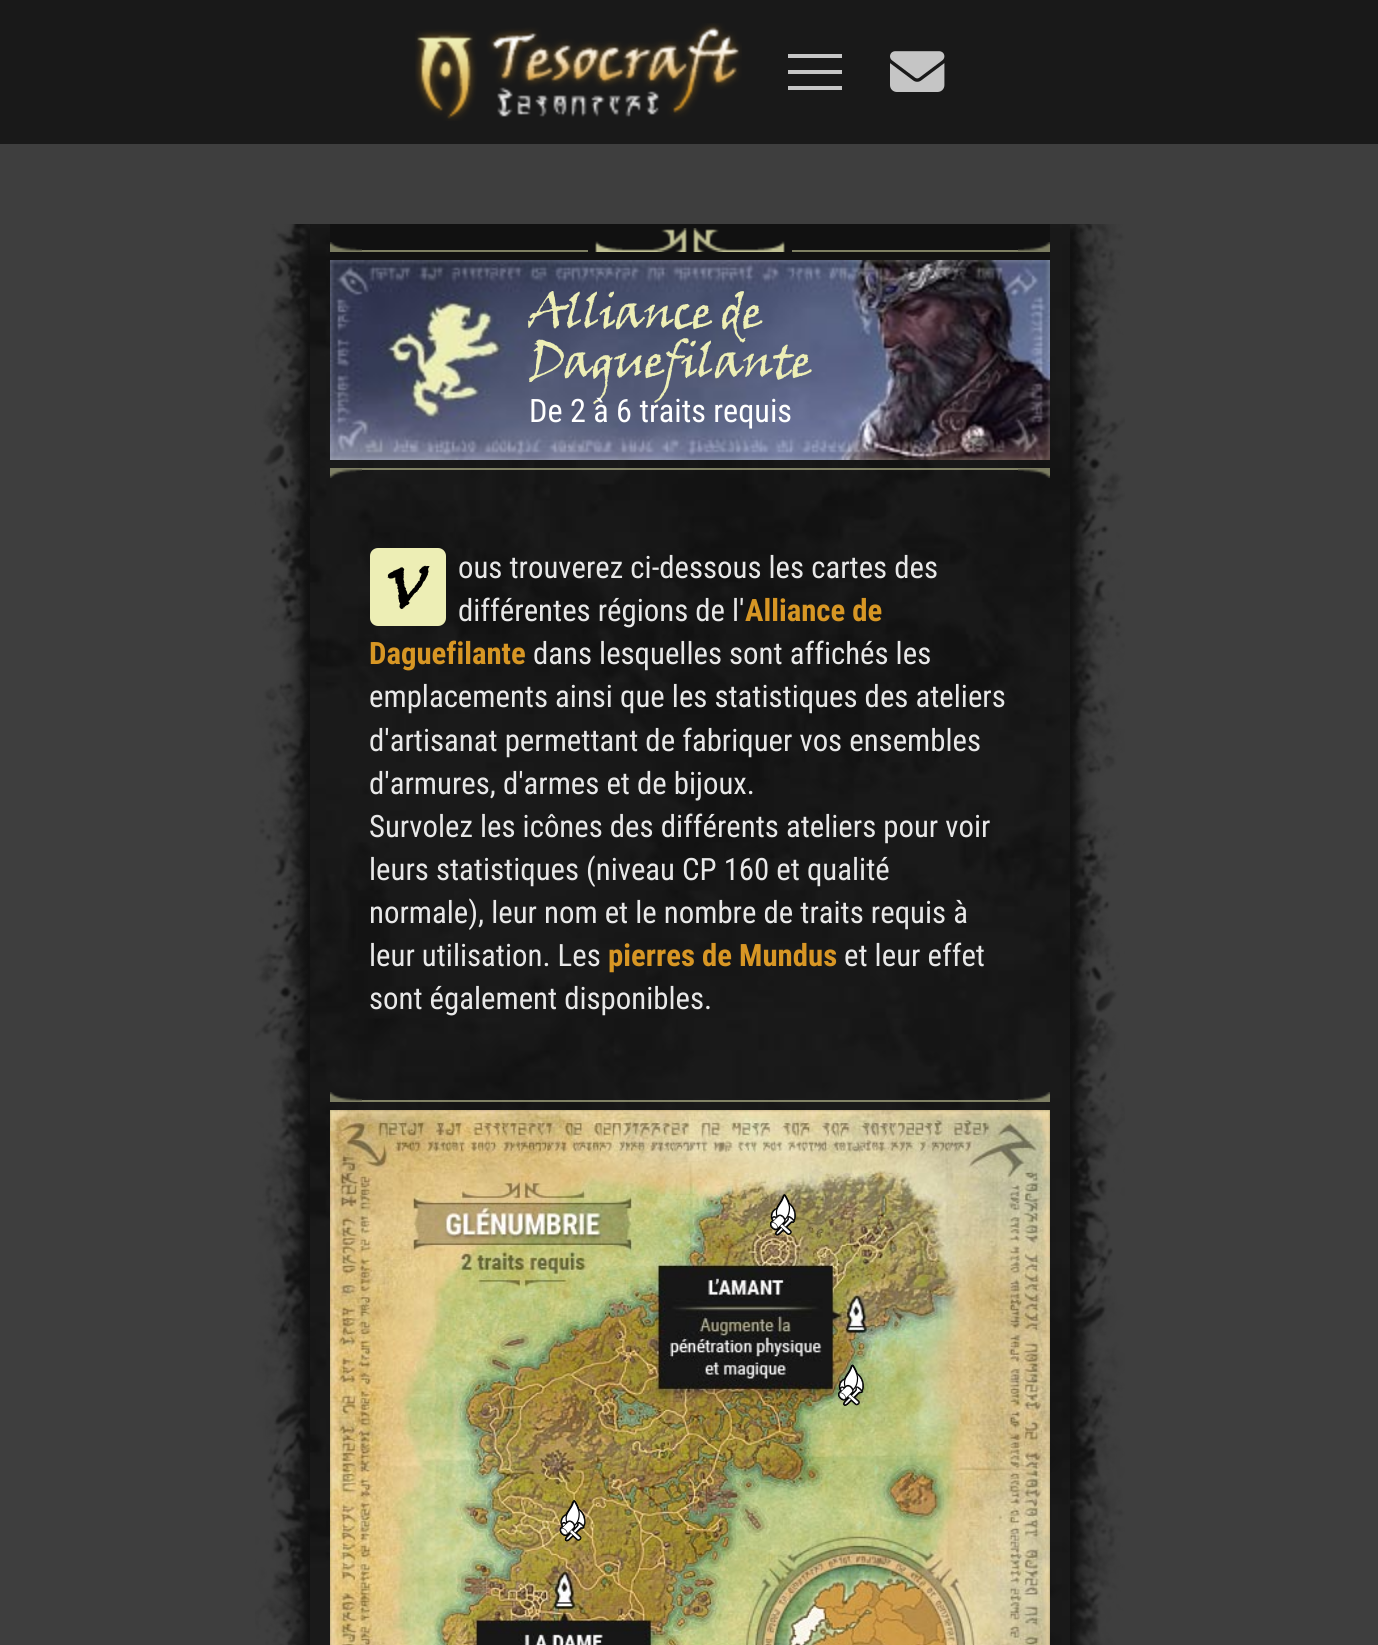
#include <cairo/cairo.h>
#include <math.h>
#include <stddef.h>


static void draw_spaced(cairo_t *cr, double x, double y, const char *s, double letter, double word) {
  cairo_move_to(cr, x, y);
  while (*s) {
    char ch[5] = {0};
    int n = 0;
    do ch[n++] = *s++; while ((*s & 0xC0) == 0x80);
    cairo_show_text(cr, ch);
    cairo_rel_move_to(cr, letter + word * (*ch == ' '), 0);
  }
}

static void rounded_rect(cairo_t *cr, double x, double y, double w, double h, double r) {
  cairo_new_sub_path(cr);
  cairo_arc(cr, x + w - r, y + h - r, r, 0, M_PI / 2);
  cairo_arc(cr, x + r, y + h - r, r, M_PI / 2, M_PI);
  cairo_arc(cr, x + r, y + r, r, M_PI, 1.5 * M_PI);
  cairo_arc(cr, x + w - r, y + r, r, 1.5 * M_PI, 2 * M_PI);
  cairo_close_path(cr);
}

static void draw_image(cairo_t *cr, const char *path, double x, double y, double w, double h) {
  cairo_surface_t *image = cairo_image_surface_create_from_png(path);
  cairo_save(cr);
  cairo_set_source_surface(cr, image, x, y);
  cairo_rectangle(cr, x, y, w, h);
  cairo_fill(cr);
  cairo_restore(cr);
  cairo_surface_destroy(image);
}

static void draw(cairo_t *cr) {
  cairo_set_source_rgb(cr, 62 / 255.0, 62 / 255.0, 62 / 255.0);
  cairo_paint(cr);
  cairo_set_source_rgb(cr, 25 / 255.0, 25 / 255.0, 25 / 255.0);
  cairo_rectangle(cr, 0, 0, 1378, 144);
  cairo_fill(cr);
  draw_image(cr, "images/1.png", 415, 23, 327, 98);
  cairo_set_source_rgb(cr, 198 / 255.0, 198 / 255.0, 198 / 255.0);
  cairo_rectangle(cr, 788, 54, 54, 4);
  cairo_fill(cr);
  cairo_rectangle(cr, 788, 70, 54, 4);
  cairo_fill(cr);
  cairo_rectangle(cr, 788, 86, 54, 4);
  cairo_fill(cr);
  draw_image(cr, "images/2.png", 890, 51, 55, 41);
  draw_image(cr, "images/3.png", 255, 224, 55, 1421);
  draw_image(cr, "images/4.png", 310, 224, 760, 1421);
  cairo_set_source_rgb(cr, 17 / 255.0, 17 / 255.0, 17 / 255.0);
  cairo_rectangle(cr, 330, 224, 720, 36);
  cairo_fill(cr);
  draw_image(cr, "images/5.png", 330, 242, 32, 10);
  cairo_set_source_rgb(cr, 127 / 255.0, 128 / 255.0, 99 / 255.0);
  cairo_rectangle(cr, 362, 250, 226, 2);
  cairo_fill(cr);
  draw_image(cr, "images/6.png", 595, 228, 190, 24);
  cairo_rectangle(cr, 792, 250, 226, 2);
  cairo_fill(cr);
  draw_image(cr, "images/7.png", 1018, 242, 32, 10);
  draw_image(cr, "images/8.png", 330, 260, 720, 200);
  draw_image(cr, "images/9.png", 330, 468, 32, 10);
  cairo_set_source_rgba(cr, 237 / 255.0, 238 / 255.0, 181 / 255.0, 0.5);
  cairo_rectangle(cr, 362, 468, 656, 2);
  cairo_fill(cr);
  draw_image(cr, "images/10.png", 1018, 468, 32, 10);
  cairo_set_source_rgb(cr, 237 / 255.0, 238 / 255.0, 181 / 255.0);
  rounded_rect(cr, 370, 548, 76, 78, 8);
  cairo_fill(cr);
  draw_image(cr, "images/11.png", 330, 1092, 32, 10);
  cairo_set_source_rgba(cr, 237 / 255.0, 238 / 255.0, 181 / 255.0, 0.5);
  cairo_rectangle(cr, 362, 1100, 656, 2);
  cairo_fill(cr);
  draw_image(cr, "images/12.png", 1018, 1092, 32, 10);
  draw_image(cr, "images/13.png", 330, 1110, 720, 535);
  draw_image(cr, "images/14.png", 770, 1194, 26, 42);
  draw_image(cr, "images/15.png", 838, 1364, 26, 42);
  draw_image(cr, "images/16.png", 559, 1500, 27, 42);
  draw_image(cr, "images/17.png", 1070, 224, 55, 1421);
  cairo_select_font_face(cr, "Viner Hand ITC", CAIRO_FONT_SLANT_NORMAL, CAIRO_FONT_WEIGHT_NORMAL);
  cairo_set_font_size(cr, 47.5);
  cairo_set_source_rgb(cr, 237 / 255.0, 238 / 255.0, 181 / 255.0);
  draw_spaced(cr, 529, 326, "Alliance de", -1.5, 0);
  draw_spaced(cr, 529, 375, "Daguefilante", -1.5, 0);
  cairo_select_font_face(cr, "Roboto Condensed", CAIRO_FONT_SLANT_NORMAL, CAIRO_FONT_WEIGHT_NORMAL);
  cairo_set_font_size(cr, 32.25);
  cairo_set_source_rgb(cr, 1, 1, 1);
  cairo_move_to(cr, 529, 422);
  cairo_show_text(cr, "De 2 à 6 traits requis");
  cairo_select_font_face(cr, "Viner Hand ITC", CAIRO_FONT_SLANT_NORMAL, CAIRO_FONT_WEIGHT_BOLD);
  cairo_set_font_size(cr, 60);
  cairo_set_source_rgb(cr, 0, 0, 0);
  cairo_move_to(cr, 387, 608);
  cairo_show_text(cr, "V");
  cairo_select_font_face(cr, "Roboto Condensed", CAIRO_FONT_SLANT_NORMAL, CAIRO_FONT_WEIGHT_NORMAL);
  cairo_set_font_size(cr, 30.8);
  cairo_set_source_rgb(cr, 232 / 255.0, 232 / 255.0, 232 / 255.0);
  cairo_move_to(cr, 458, 578);
  cairo_show_text(cr, "ous trouverez ci-dessous les cartes des");
  cairo_move_to(cr, 458, 621);
  cairo_show_text(cr, "différentes régions de l'");
  cairo_select_font_face(cr, "Roboto Condensed", CAIRO_FONT_SLANT_NORMAL, CAIRO_FONT_WEIGHT_BOLD);
  cairo_set_source_rgb(cr, 215 / 255.0, 150 / 255.0, 36 / 255.0);
  cairo_move_to(cr, 745, 621);
  cairo_show_text(cr, "Alliance de");
  cairo_move_to(cr, 369, 664);
  cairo_show_text(cr, "Daguefilante");
  cairo_select_font_face(cr, "Roboto Condensed", CAIRO_FONT_SLANT_NORMAL, CAIRO_FONT_WEIGHT_NORMAL);
  cairo_set_source_rgb(cr, 232 / 255.0, 232 / 255.0, 232 / 255.0);
  cairo_move_to(cr, 533, 664);
  cairo_show_text(cr, "dans lesquelles sont affichés les");
  cairo_move_to(cr, 369, 707);
  cairo_show_text(cr, "emplacements ainsi que les statistiques des ateliers");
  cairo_move_to(cr, 369, 751);
  cairo_show_text(cr, "d'artisanat permettant de fabriquer vos ensembles");
  cairo_move_to(cr, 369, 794);
  cairo_show_text(cr, "d'armures, d'armes et de bijoux.");
  cairo_move_to(cr, 369, 837);
  cairo_show_text(cr, "Survolez les icônes des différents ateliers pour voir");
  cairo_move_to(cr, 369, 880);
  cairo_show_text(cr, "leurs statistiques (niveau CP 160 et qualité");
  cairo_move_to(cr, 369, 923);
  cairo_show_text(cr, "normale), leur nom et le nombre de traits requis à");
  cairo_move_to(cr, 369, 966);
  cairo_show_text(cr, "leur utilisation. Les");
  cairo_select_font_face(cr, "Roboto Condensed", CAIRO_FONT_SLANT_NORMAL, CAIRO_FONT_WEIGHT_BOLD);
  cairo_set_source_rgb(cr, 215 / 255.0, 150 / 255.0, 36 / 255.0);
  cairo_move_to(cr, 608, 966);
  cairo_show_text(cr, "pierres de Mundus");
  cairo_select_font_face(cr, "Roboto Condensed", CAIRO_FONT_SLANT_NORMAL, CAIRO_FONT_WEIGHT_NORMAL);
  cairo_set_source_rgb(cr, 232 / 255.0, 232 / 255.0, 232 / 255.0);
  cairo_move_to(cr, 844, 966);
  cairo_show_text(cr, "et leur effet");
  cairo_move_to(cr, 369, 1009);
  cairo_show_text(cr, "sont également disponibles.");
}

int main(void) {
  cairo_surface_t *surface = cairo_image_surface_create(CAIRO_FORMAT_RGB24, 1378, 1645);
  cairo_t *cr = cairo_create(surface);
  cairo_font_options_t *options = cairo_font_options_create();
  cairo_font_options_set_hint_metrics(options, CAIRO_HINT_METRICS_OFF);
  cairo_font_options_set_hint_style(options, CAIRO_HINT_STYLE_NONE);
  cairo_set_font_options(cr, options);
  cairo_set_miter_limit(cr, 4);
  draw(cr);
  cairo_surface_write_to_png(surface, "out.png");
  cairo_font_options_destroy(options);
  cairo_destroy(cr);
  cairo_surface_destroy(surface);
  return 0;
}
